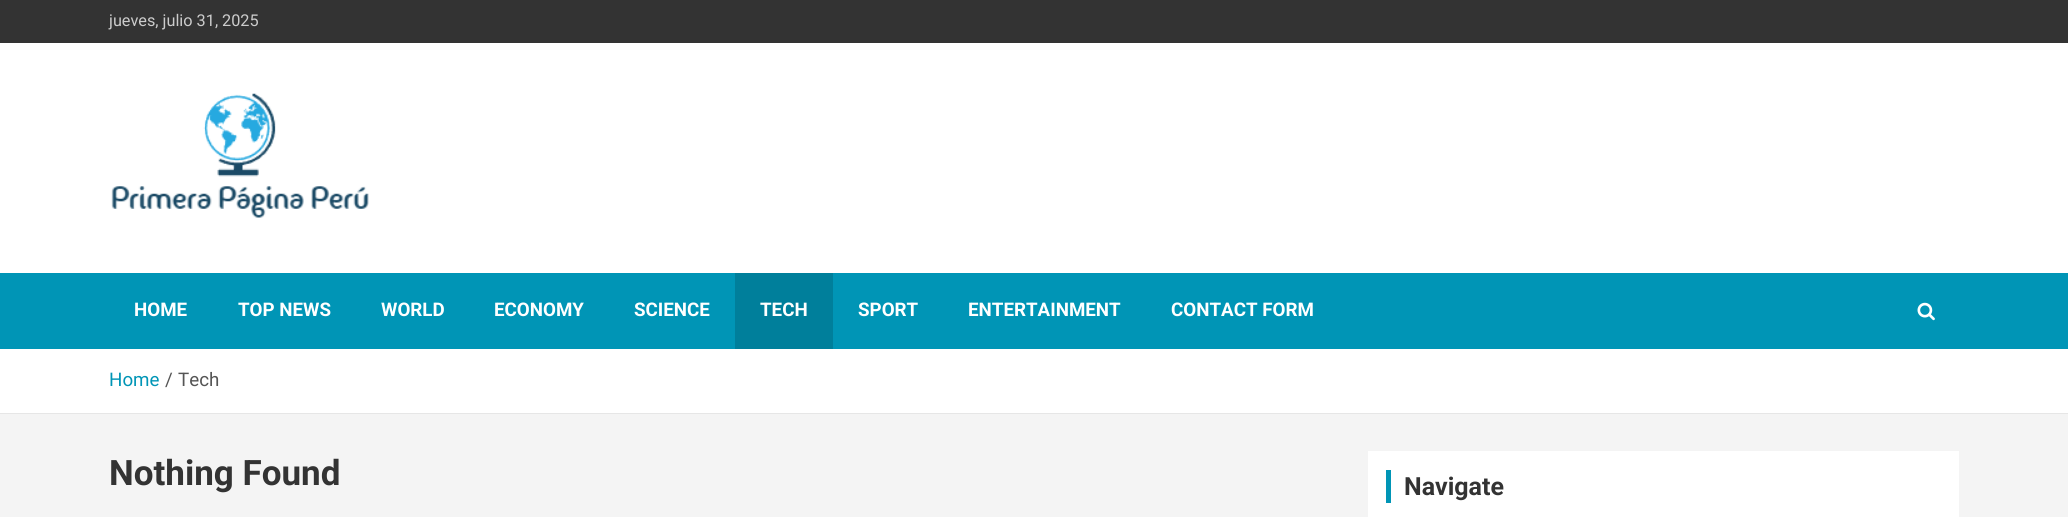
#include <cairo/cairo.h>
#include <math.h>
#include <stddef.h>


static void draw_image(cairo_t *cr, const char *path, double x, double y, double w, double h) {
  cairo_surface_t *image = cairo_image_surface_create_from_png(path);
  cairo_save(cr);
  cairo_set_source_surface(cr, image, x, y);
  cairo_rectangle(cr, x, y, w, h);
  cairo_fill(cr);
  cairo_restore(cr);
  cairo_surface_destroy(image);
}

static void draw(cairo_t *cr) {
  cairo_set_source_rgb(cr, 244 / 255.0, 244 / 255.0, 244 / 255.0);
  cairo_paint(cr);
  cairo_set_source_rgb(cr, 51 / 255.0, 51 / 255.0, 51 / 255.0);
  cairo_rectangle(cr, 0, 0, 2068, 43);
  cairo_fill(cr);
  cairo_set_source_rgb(cr, 1, 1, 1);
  cairo_rectangle(cr, 0, 43, 2068, 230);
  cairo_fill(cr);
  draw_image(cr, "images/1.png", 111, 93, 258, 125);
  cairo_set_source_rgb(cr, 0, 149 / 255.0, 182 / 255.0);
  cairo_rectangle(cr, 0, 273, 2068, 76);
  cairo_fill(cr);
  cairo_set_source_rgb(cr, 0, 127 / 255.0, 155 / 255.0);
  cairo_rectangle(cr, 735, 273, 98, 76);
  cairo_fill(cr);
  draw_image(cr, "images/2.png", 1917, 302, 18, 19);
  cairo_set_source_rgb(cr, 1, 1, 1);
  cairo_rectangle(cr, 0, 349, 2068, 64);
  cairo_fill(cr);
  cairo_set_source_rgb(cr, 230 / 255.0, 230 / 255.0, 230 / 255.0);
  cairo_rectangle(cr, 0, 413, 2068, 1);
  cairo_fill(cr);
  cairo_set_source_rgb(cr, 1, 1, 1);
  cairo_rectangle(cr, 1368, 451, 591, 66);
  cairo_fill(cr);
  cairo_set_source_rgb(cr, 0, 149 / 255.0, 182 / 255.0);
  cairo_rectangle(cr, 1386, 470, 5, 33);
  cairo_fill(cr);
  cairo_select_font_face(cr, "Roboto", CAIRO_FONT_SLANT_NORMAL, CAIRO_FONT_WEIGHT_NORMAL);
  cairo_set_font_size(cr, 16.25);
  cairo_set_source_rgb(cr, 204 / 255.0, 204 / 255.0, 204 / 255.0);
  cairo_move_to(cr, 109, 26);
  cairo_show_text(cr, "jueves, julio 31, 2025");
  cairo_select_font_face(cr, "Roboto", CAIRO_FONT_SLANT_NORMAL, CAIRO_FONT_WEIGHT_BOLD);
  cairo_set_font_size(cr, 18.75);
  cairo_set_source_rgb(cr, 1, 1, 1);
  cairo_move_to(cr, 134, 316);
  cairo_show_text(cr, "HOME");
  cairo_move_to(cr, 238, 316);
  cairo_show_text(cr, "TOP NEWS");
  cairo_move_to(cr, 381, 316);
  cairo_show_text(cr, "WORLD");
  cairo_move_to(cr, 494, 316);
  cairo_show_text(cr, "ECONOMY");
  cairo_move_to(cr, 634, 316);
  cairo_show_text(cr, "SCIENCE");
  cairo_move_to(cr, 760, 316);
  cairo_show_text(cr, "TECH");
  cairo_move_to(cr, 858, 316);
  cairo_show_text(cr, "SPORT");
  cairo_move_to(cr, 968, 316);
  cairo_show_text(cr, "ENTERTAINMENT");
  cairo_move_to(cr, 1171, 316);
  cairo_show_text(cr, "CONTACT FORM");
  cairo_select_font_face(cr, "Roboto", CAIRO_FONT_SLANT_NORMAL, CAIRO_FONT_WEIGHT_NORMAL);
  cairo_set_source_rgb(cr, 0, 149 / 255.0, 182 / 255.0);
  cairo_move_to(cr, 109, 386);
  cairo_show_text(cr, "Home");
  cairo_set_source_rgb(cr, 85 / 255.0, 85 / 255.0, 85 / 255.0);
  cairo_move_to(cr, 165, 386);
  cairo_show_text(cr, "/");
  cairo_move_to(cr, 178, 386);
  cairo_show_text(cr, "Tech");
  cairo_select_font_face(cr, "Roboto", CAIRO_FONT_SLANT_NORMAL, CAIRO_FONT_WEIGHT_BOLD);
  cairo_set_font_size(cr, 35);
  cairo_set_source_rgb(cr, 51 / 255.0, 51 / 255.0, 51 / 255.0);
  cairo_move_to(cr, 109, 485);
  cairo_show_text(cr, "Nothing Found");
  cairo_set_font_size(cr, 25);
  cairo_move_to(cr, 1404, 495);
  cairo_show_text(cr, "Navigate");
}

int main(void) {
  cairo_surface_t *surface = cairo_image_surface_create(CAIRO_FORMAT_RGB24, 2068, 517);
  cairo_t *cr = cairo_create(surface);
  cairo_font_options_t *options = cairo_font_options_create();
  cairo_font_options_set_hint_metrics(options, CAIRO_HINT_METRICS_OFF);
  cairo_font_options_set_hint_style(options, CAIRO_HINT_STYLE_NONE);
  cairo_set_font_options(cr, options);
  cairo_set_miter_limit(cr, 4);
  draw(cr);
  cairo_surface_write_to_png(surface, "out.png");
  cairo_font_options_destroy(options);
  cairo_destroy(cr);
  cairo_surface_destroy(surface);
  return 0;
}
